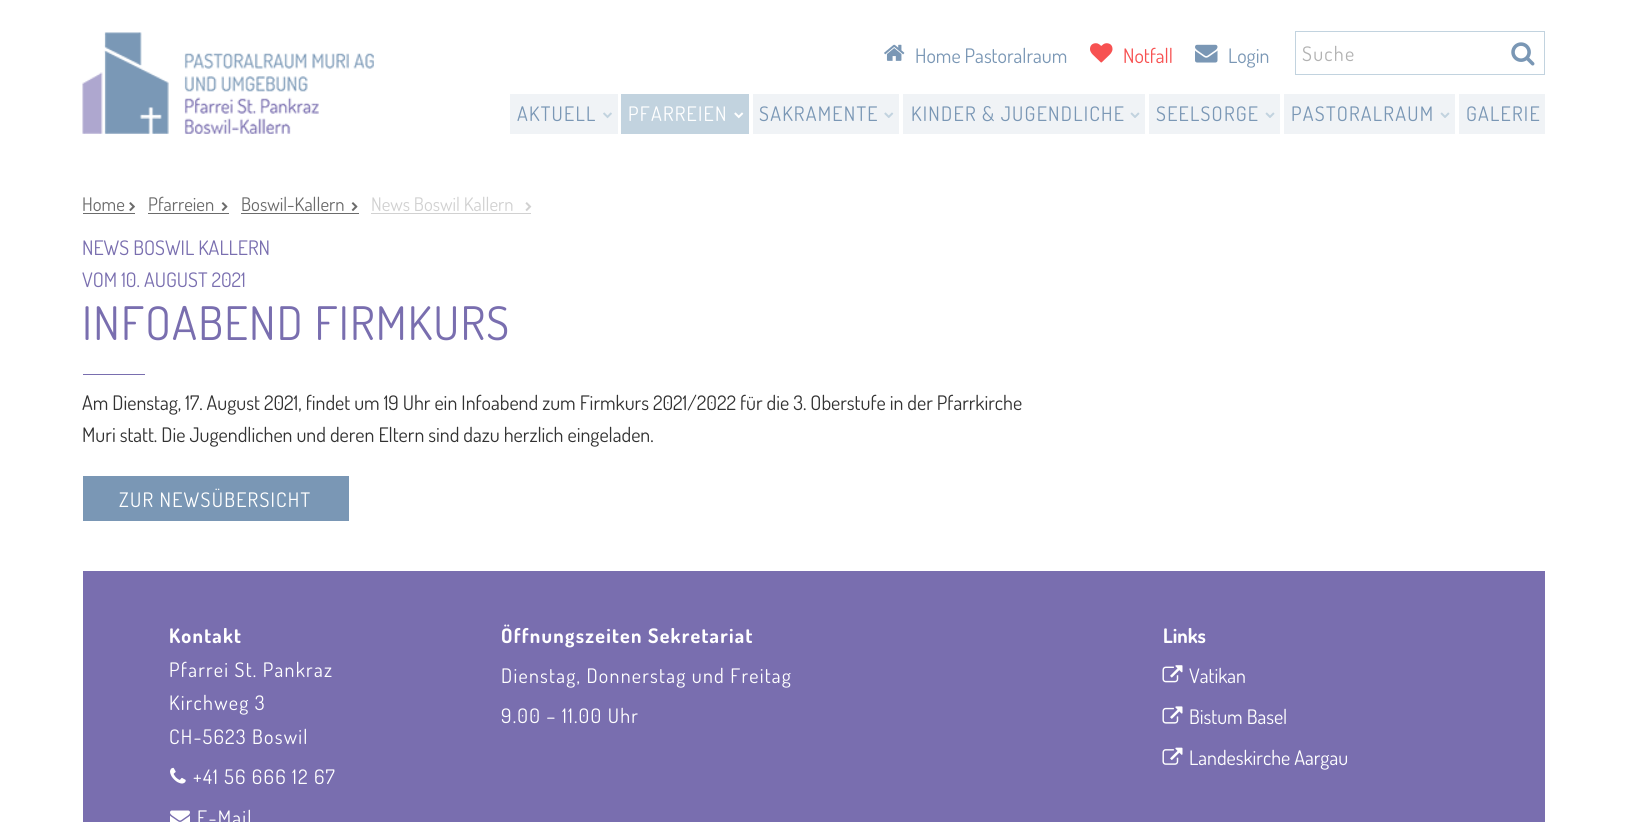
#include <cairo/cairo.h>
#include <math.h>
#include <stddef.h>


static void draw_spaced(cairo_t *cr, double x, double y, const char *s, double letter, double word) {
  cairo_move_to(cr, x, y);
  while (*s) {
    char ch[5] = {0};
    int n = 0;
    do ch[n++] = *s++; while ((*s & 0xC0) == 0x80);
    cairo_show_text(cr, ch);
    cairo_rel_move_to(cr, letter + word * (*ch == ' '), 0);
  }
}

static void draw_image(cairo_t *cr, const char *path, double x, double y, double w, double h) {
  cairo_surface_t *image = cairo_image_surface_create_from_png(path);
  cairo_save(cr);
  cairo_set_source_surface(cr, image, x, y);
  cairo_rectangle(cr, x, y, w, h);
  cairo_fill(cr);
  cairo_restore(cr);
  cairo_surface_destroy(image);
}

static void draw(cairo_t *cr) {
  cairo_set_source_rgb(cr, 1, 1, 1);
  cairo_paint(cr);
  draw_image(cr, "images/1.png", 82, 32, 292, 102);
  draw_image(cr, "images/2.png", 884, 44, 21, 17);
  draw_image(cr, "images/3.png", 1090, 43, 23, 20);
  draw_image(cr, "images/4.png", 1195, 44, 23, 19);
  cairo_rectangle(cr, 1295.5, 31.5, 249, 43);
  cairo_set_source_rgb(cr, 194 / 255.0, 211 / 255.0, 223 / 255.0);
  cairo_set_line_width(cr, 1);
  cairo_stroke(cr);
  draw_image(cr, "images/5.png", 1511, 42, 24, 24);
  cairo_set_source_rgb(cr, 240 / 255.0, 243 / 255.0, 246 / 255.0);
  cairo_rectangle(cr, 510, 94, 108, 40);
  cairo_fill(cr);
  draw_image(cr, "images/6.png", 603, 112, 9, 7);
  cairo_set_source_rgb(cr, 194 / 255.0, 211 / 255.0, 223 / 255.0);
  cairo_rectangle(cr, 621, 94, 128, 40);
  cairo_fill(cr);
  draw_image(cr, "images/7.png", 734, 112, 10, 7);
  cairo_set_source_rgb(cr, 240 / 255.0, 243 / 255.0, 246 / 255.0);
  cairo_rectangle(cr, 753, 94, 146, 40);
  cairo_fill(cr);
  draw_image(cr, "images/8.png", 884, 112, 10, 6);
  cairo_rectangle(cr, 903, 94, 242, 40);
  cairo_fill(cr);
  draw_image(cr, "images/9.png", 1130, 112, 10, 6);
  cairo_rectangle(cr, 1149, 94, 131, 40);
  cairo_fill(cr);
  draw_image(cr, "images/9.png", 1265, 112, 10, 6);
  cairo_rectangle(cr, 1284, 94, 171, 40);
  cairo_fill(cr);
  draw_image(cr, "images/9.png", 1440, 112, 10, 6);
  cairo_rectangle(cr, 1459, 94, 86, 40);
  cairo_fill(cr);
  cairo_set_source_rgb(cr, 107 / 255.0, 107 / 255.0, 107 / 255.0);
  cairo_rectangle(cr, 83, 213, 52, 1);
  cairo_fill(cr);
  draw_image(cr, "images/10.png", 129, 202, 6, 9);
  cairo_rectangle(cr, 148, 213, 81, 1);
  cairo_fill(cr);
  draw_image(cr, "images/11.png", 221, 202, 7, 9);
  cairo_rectangle(cr, 241, 213, 118, 1);
  cairo_fill(cr);
  draw_image(cr, "images/11.png", 351, 202, 7, 9);
  cairo_set_source_rgb(cr, 209 / 255.0, 209 / 255.0, 209 / 255.0);
  cairo_rectangle(cr, 371, 213, 160, 1);
  cairo_fill(cr);
  draw_image(cr, "images/12.png", 525, 202, 7, 9);
  cairo_set_source_rgb(cr, 121 / 255.0, 110 / 255.0, 175 / 255.0);
  cairo_rectangle(cr, 83, 374, 62, 1);
  cairo_fill(cr);
  cairo_set_source_rgb(cr, 122 / 255.0, 151 / 255.0, 181 / 255.0);
  cairo_rectangle(cr, 83, 476, 266, 45);
  cairo_fill(cr);
  cairo_set_source_rgb(cr, 121 / 255.0, 110 / 255.0, 175 / 255.0);
  cairo_rectangle(cr, 83, 571, 1462, 251);
  cairo_fill(cr);
  draw_image(cr, "images/13.png", 170, 767, 16, 17);
  draw_image(cr, "images/14.png", 170, 810, 20, 12);
  draw_image(cr, "images/15.png", 1162, 665, 21, 18);
  draw_image(cr, "images/16.png", 1162, 706, 21, 18);
  draw_image(cr, "images/17.png", 1162, 747, 21, 18);
  cairo_select_font_face(cr, "Dosis", CAIRO_FONT_SLANT_NORMAL, CAIRO_FONT_WEIGHT_NORMAL);
  cairo_set_font_size(cr, 20);
  cairo_set_source_rgb(cr, 122 / 255.0, 151 / 255.0, 181 / 255.0);
  cairo_move_to(cr, 915, 63);
  cairo_show_text(cr, "Home Pastoralraum");
  cairo_set_source_rgb(cr, 247 / 255.0, 81 / 255.0, 81 / 255.0);
  cairo_move_to(cr, 1123, 63);
  cairo_show_text(cr, "Notfall");
  cairo_set_source_rgb(cr, 122 / 255.0, 151 / 255.0, 181 / 255.0);
  cairo_move_to(cr, 1228, 63);
  cairo_show_text(cr, "Login");
  cairo_set_source_rgb(cr, 178 / 255.0, 178 / 255.0, 178 / 255.0);
  draw_spaced(cr, 1302, 61, "Suche", 1.25, 0);
  cairo_set_source_rgb(cr, 122 / 255.0, 151 / 255.0, 181 / 255.0);
  draw_spaced(cr, 517, 121, "AKTUELL", 1.25, 0);
  cairo_set_source_rgb(cr, 1, 1, 1);
  draw_spaced(cr, 628, 121, "PFARREIEN", 1.25, 0);
  cairo_set_source_rgb(cr, 122 / 255.0, 151 / 255.0, 181 / 255.0);
  draw_spaced(cr, 759, 121, "SAKRAMENTE", 1.25, 0);
  draw_spaced(cr, 911, 121, "KINDER & JUGENDLICHE", 1.25, 0);
  draw_spaced(cr, 1156, 121, "SEELSORGE", 1.25, 0);
  draw_spaced(cr, 1291, 121, "PASTORALRAUM", 1.25, 0);
  draw_spaced(cr, 1466, 121, "GALERIE", 1.25, 0);
  cairo_set_font_size(cr, 18.75);
  cairo_set_source_rgb(cr, 107 / 255.0, 107 / 255.0, 107 / 255.0);
  cairo_move_to(cr, 82, 211);
  cairo_show_text(cr, "Home");
  cairo_move_to(cr, 148, 211);
  cairo_show_text(cr, "Pfarreien");
  cairo_move_to(cr, 241, 211);
  cairo_show_text(cr, "Boswil-Kallern");
  cairo_set_source_rgb(cr, 209 / 255.0, 209 / 255.0, 209 / 255.0);
  cairo_move_to(cr, 371, 211);
  cairo_show_text(cr, "News Boswil Kallern");
  cairo_set_font_size(cr, 20);
  cairo_set_source_rgb(cr, 121 / 255.0, 110 / 255.0, 175 / 255.0);
  cairo_move_to(cr, 82, 255);
  cairo_show_text(cr, "NEWS BOSWIL KALLERN");
  cairo_move_to(cr, 82, 287);
  cairo_show_text(cr, "VOM 10. AUGUST 2021");
  cairo_set_font_size(cr, 46.25);
  draw_spaced(cr, 82, 340, "INFOABEND FIRMKURS", 1.25, 0);
  cairo_set_font_size(cr, 20);
  cairo_set_source_rgb(cr, 50 / 255.0, 50 / 255.0, 50 / 255.0);
  cairo_move_to(cr, 82, 410);
  cairo_show_text(cr, "Am Dienstag, 17. August 2021, findet um 19 Uhr ein Infoabend zum Firmkurs 2021/2022 für die 3. Oberstufe in der Pfarrkirche");
  cairo_move_to(cr, 82, 442);
  cairo_show_text(cr, "Muri statt. Die Jugendlichen und deren Eltern sind dazu herzlich eingeladen.");
  cairo_set_source_rgb(cr, 1, 1, 1);
  draw_spaced(cr, 119, 507, "ZUR NEWSÜBERSICHT", 1.25, 0);
  cairo_select_font_face(cr, "Dosis", CAIRO_FONT_SLANT_NORMAL, CAIRO_FONT_WEIGHT_BOLD);
  draw_spaced(cr, 169, 643, "Kontakt", 1.25, 0);
  cairo_select_font_face(cr, "Dosis", CAIRO_FONT_SLANT_NORMAL, CAIRO_FONT_WEIGHT_NORMAL);
  draw_spaced(cr, 169, 677, "Pfarrei St. Pankraz", 1.25, 0);
  draw_spaced(cr, 169, 710, "Kirchweg 3", 1.25, 0);
  draw_spaced(cr, 169, 744, "CH-5623 Boswil", 1.25, 0);
  draw_spaced(cr, 193, 784, "+41 56 666 12 67", 1.25, 0);
  draw_spaced(cr, 197, 825, "E-Mail", 1.25, 0);
  cairo_select_font_face(cr, "Dosis", CAIRO_FONT_SLANT_NORMAL, CAIRO_FONT_WEIGHT_BOLD);
  draw_spaced(cr, 501, 643, "Öffnungszeiten Sekretariat", 1.25, 0);
  cairo_select_font_face(cr, "Dosis", CAIRO_FONT_SLANT_NORMAL, CAIRO_FONT_WEIGHT_NORMAL);
  draw_spaced(cr, 501, 683, "Dienstag, Donnerstag und Freitag", 1.25, 0);
  draw_spaced(cr, 501, 723, "9.00 – 11.00 Uhr", 1.25, 0);
  cairo_select_font_face(cr, "Dosis", CAIRO_FONT_SLANT_NORMAL, CAIRO_FONT_WEIGHT_BOLD);
  cairo_move_to(cr, 1163, 643);
  cairo_show_text(cr, "Links");
  cairo_select_font_face(cr, "Dosis", CAIRO_FONT_SLANT_NORMAL, CAIRO_FONT_WEIGHT_NORMAL);
  cairo_move_to(cr, 1189, 683);
  cairo_show_text(cr, "Vatikan");
  cairo_move_to(cr, 1189, 724);
  cairo_show_text(cr, "Bistum Basel");
  cairo_move_to(cr, 1189, 765);
  cairo_show_text(cr, "Landeskirche Aargau");
}

int main(void) {
  cairo_surface_t *surface = cairo_image_surface_create(CAIRO_FORMAT_RGB24, 1626, 822);
  cairo_t *cr = cairo_create(surface);
  cairo_font_options_t *options = cairo_font_options_create();
  cairo_font_options_set_hint_metrics(options, CAIRO_HINT_METRICS_OFF);
  cairo_font_options_set_hint_style(options, CAIRO_HINT_STYLE_NONE);
  cairo_set_font_options(cr, options);
  cairo_set_miter_limit(cr, 4);
  draw(cr);
  cairo_surface_write_to_png(surface, "out.png");
  cairo_font_options_destroy(options);
  cairo_destroy(cr);
  cairo_surface_destroy(surface);
  return 0;
}
